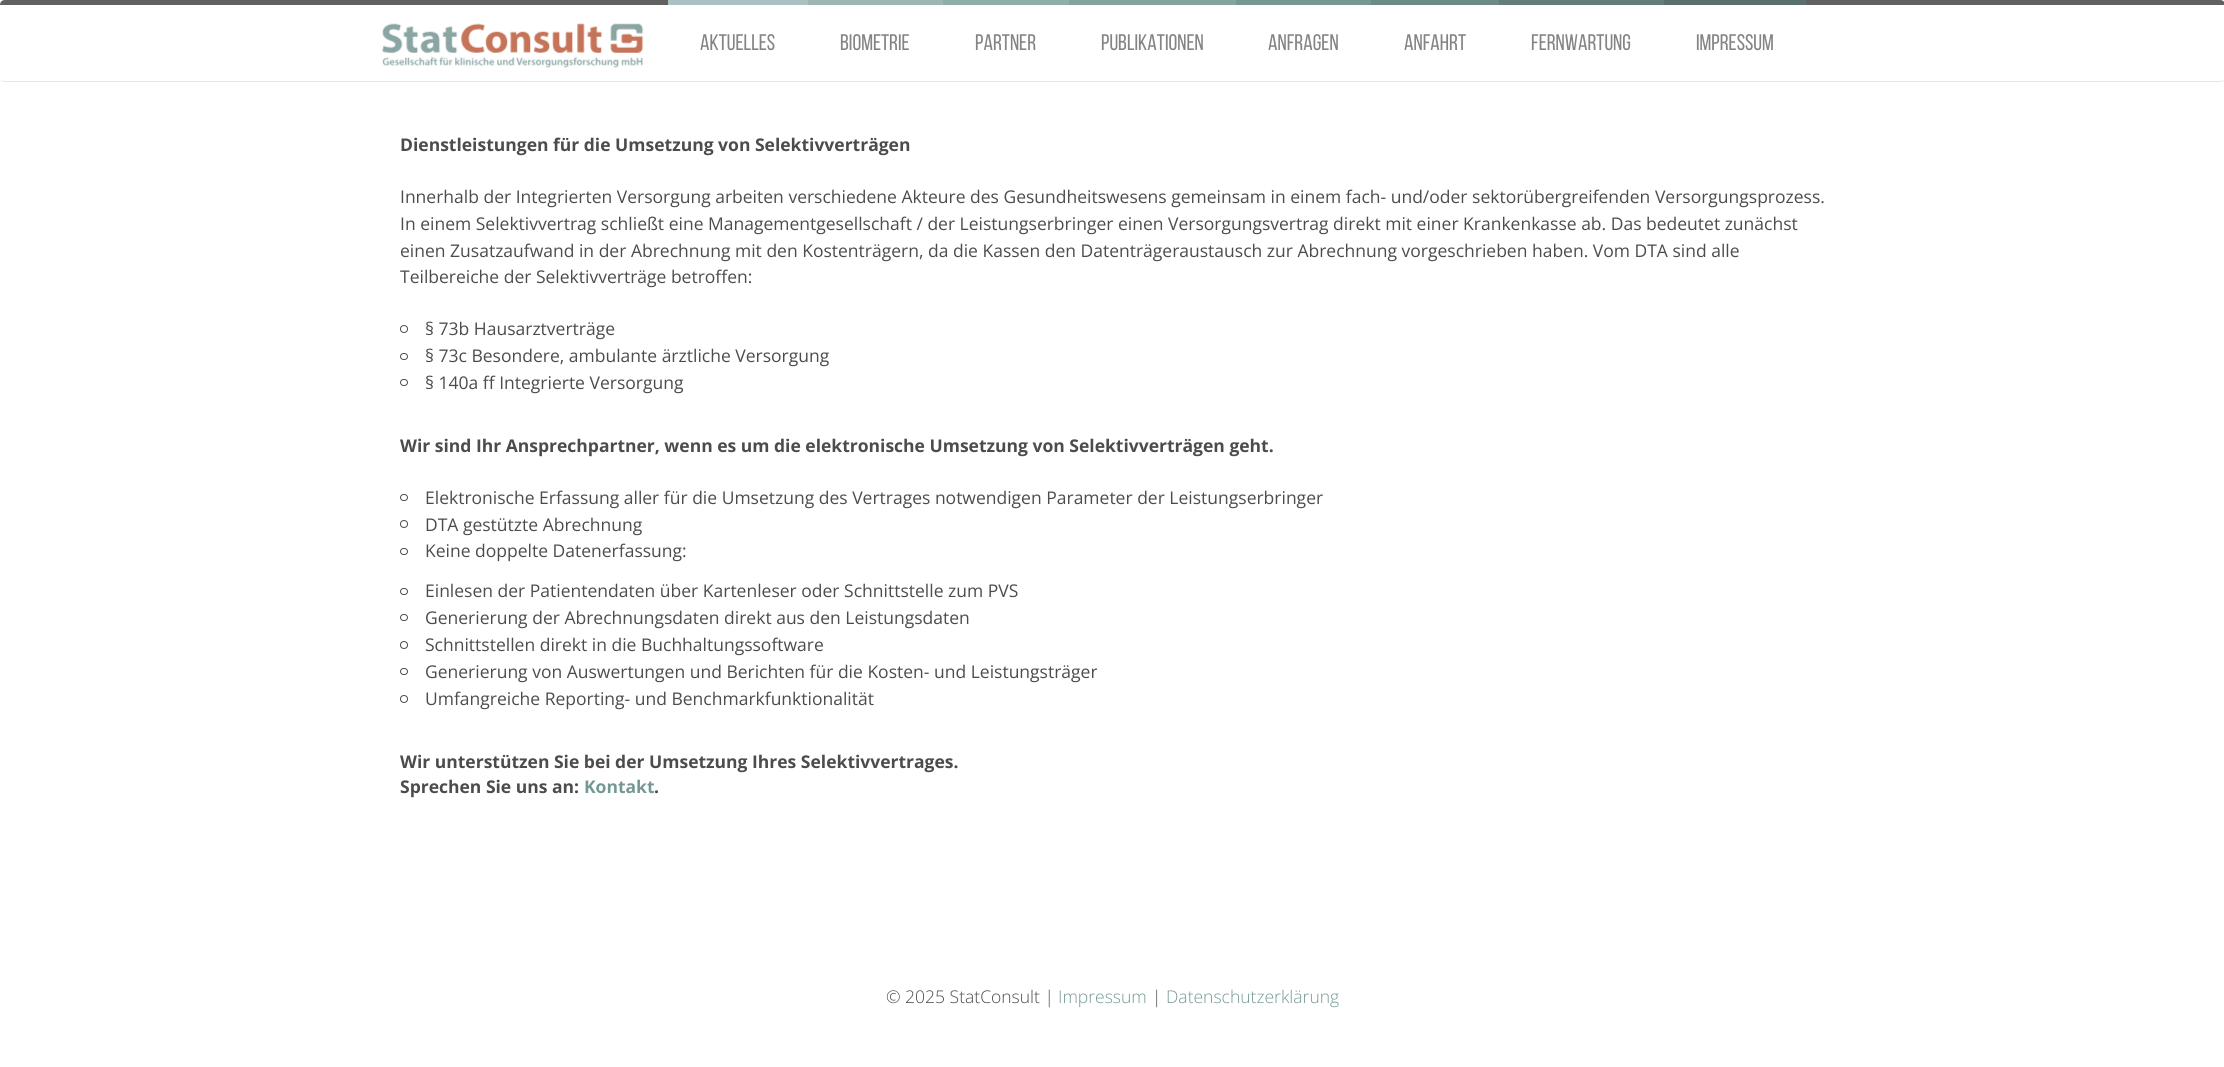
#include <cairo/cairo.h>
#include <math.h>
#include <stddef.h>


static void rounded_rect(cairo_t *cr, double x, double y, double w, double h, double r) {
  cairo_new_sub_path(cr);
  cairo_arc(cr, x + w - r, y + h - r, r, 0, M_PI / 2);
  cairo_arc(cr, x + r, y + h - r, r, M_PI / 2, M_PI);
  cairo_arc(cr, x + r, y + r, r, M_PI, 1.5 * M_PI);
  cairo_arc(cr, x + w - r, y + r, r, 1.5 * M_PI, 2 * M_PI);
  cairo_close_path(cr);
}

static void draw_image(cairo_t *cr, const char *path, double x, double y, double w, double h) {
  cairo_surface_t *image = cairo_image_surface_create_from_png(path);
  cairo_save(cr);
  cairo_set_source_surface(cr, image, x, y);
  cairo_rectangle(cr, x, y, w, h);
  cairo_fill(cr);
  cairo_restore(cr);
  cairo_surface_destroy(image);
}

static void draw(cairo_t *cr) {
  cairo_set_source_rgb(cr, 1, 1, 1);
  cairo_paint(cr);
  cairo_set_source_rgb(cr, 97 / 255.0, 97 / 255.0, 97 / 255.0);
  cairo_new_path(cr);
  cairo_move_to(cr, 5, 0);
  cairo_curve_to(cr, 2, 0, 0, 2, 0, 5);
  cairo_line_to(cr, 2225, 5);
  cairo_curve_to(cr, 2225, 2, 2223, 0, 2220, 0);
  cairo_close_path(cr);
  cairo_fill(cr);
  cairo_set_source_rgb(cr, 230 / 255.0, 230 / 255.0, 230 / 255.0);
  cairo_new_path(cr);
  cairo_move_to(cr, 2220, 82);
  cairo_curve_to(cr, 2223, 82, 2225, 80, 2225, 78);
  cairo_curve_to(cr, 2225, 80, 2223, 81, 2220, 81);
  cairo_line_to(cr, 5, 81);
  cairo_curve_to(cr, 2, 81, 0, 80, 0, 78);
  cairo_curve_to(cr, 0, 80, 2, 82, 5, 82);
  cairo_close_path(cr);
  cairo_fill(cr);
  draw_image(cr, "images/1.png", 382, 23, 262, 45);
  cairo_set_source_rgb(cr, 170 / 255.0, 192 / 255.0, 195 / 255.0);
  cairo_rectangle(cr, 668, 0, 140, 5);
  cairo_fill(cr);
  cairo_set_source_rgb(cr, 156 / 255.0, 183 / 255.0, 179 / 255.0);
  cairo_rectangle(cr, 808, 0, 135, 5);
  cairo_fill(cr);
  cairo_set_source_rgb(cr, 143 / 255.0, 173 / 255.0, 170 / 255.0);
  cairo_rectangle(cr, 943, 0, 126, 5);
  cairo_fill(cr);
  cairo_set_source_rgb(cr, 130 / 255.0, 163 / 255.0, 160 / 255.0);
  cairo_rectangle(cr, 1069, 0, 167, 5);
  cairo_fill(cr);
  cairo_set_source_rgb(cr, 118 / 255.0, 152 / 255.0, 148 / 255.0);
  cairo_rectangle(cr, 1236, 0, 135, 5);
  cairo_fill(cr);
  cairo_set_source_rgb(cr, 108 / 255.0, 139 / 255.0, 135 / 255.0);
  cairo_rectangle(cr, 1371, 0, 128, 5);
  cairo_fill(cr);
  cairo_set_source_rgb(cr, 98 / 255.0, 125 / 255.0, 123 / 255.0);
  cairo_rectangle(cr, 1499, 0, 165, 5);
  cairo_fill(cr);
  cairo_set_source_rgb(cr, 89 / 255.0, 112 / 255.0, 109 / 255.0);
  cairo_rectangle(cr, 1664, 0, 142, 5);
  cairo_fill(cr);
  cairo_arc(cr, 404, 329, 3.5, 0, 2 * M_PI);
  cairo_set_source_rgb(cr, 76 / 255.0, 76 / 255.0, 76 / 255.0);
  cairo_set_line_width(cr, 1);
  cairo_stroke(cr);
  rounded_rect(cr, 400.5, 353.5, 7, 6, 3);
  cairo_stroke(cr);
  rounded_rect(cr, 400.5, 379.5, 7, 6, 3);
  cairo_stroke(cr);
  rounded_rect(cr, 400.5, 494.5, 7, 6, 3);
  cairo_stroke(cr);
  cairo_arc(cr, 404, 524, 3.5, 0, 2 * M_PI);
  cairo_stroke(cr);
  rounded_rect(cr, 400.5, 548.5, 7, 6, 3);
  cairo_stroke(cr);
  rounded_rect(cr, 400.5, 588.5, 7, 6, 3);
  cairo_stroke(cr);
  rounded_rect(cr, 400.5, 614.5, 7, 6, 3);
  cairo_stroke(cr);
  cairo_arc(cr, 404, 645, 3.5, 0, 2 * M_PI);
  cairo_stroke(cr);
  rounded_rect(cr, 400.5, 668.5, 7, 6, 3);
  cairo_stroke(cr);
  cairo_arc(cr, 404, 699, 3.5, 0, 2 * M_PI);
  cairo_stroke(cr);
  cairo_select_font_face(cr, "Bebas Neue", CAIRO_FONT_SLANT_NORMAL, CAIRO_FONT_WEIGHT_NORMAL);
  cairo_set_font_size(cr, 22.5);
  cairo_set_source_rgb(cr, 133 / 255.0, 132 / 255.0, 132 / 255.0);
  cairo_move_to(cr, 700, 50);
  cairo_show_text(cr, "Aktuelles");
  cairo_move_to(cr, 840, 50);
  cairo_show_text(cr, "Biometrie");
  cairo_move_to(cr, 975, 50);
  cairo_show_text(cr, "Partner");
  cairo_move_to(cr, 1101, 50);
  cairo_show_text(cr, "Publikationen");
  cairo_move_to(cr, 1268, 50);
  cairo_show_text(cr, "Anfragen");
  cairo_move_to(cr, 1404, 50);
  cairo_show_text(cr, "Anfahrt");
  cairo_move_to(cr, 1531, 50);
  cairo_show_text(cr, "Fernwartung");
  cairo_move_to(cr, 1696, 50);
  cairo_show_text(cr, "Impressum");
  cairo_select_font_face(cr, "Open Sans", CAIRO_FONT_SLANT_NORMAL, CAIRO_FONT_WEIGHT_BOLD);
  cairo_set_font_size(cr, 17.5);
  cairo_set_source_rgb(cr, 76 / 255.0, 76 / 255.0, 76 / 255.0);
  cairo_move_to(cr, 400, 151);
  cairo_show_text(cr, "Dienstleistungen für die Umsetzung von Selektivverträgen");
  cairo_select_font_face(cr, "Open Sans", CAIRO_FONT_SLANT_NORMAL, CAIRO_FONT_WEIGHT_NORMAL);
  cairo_move_to(cr, 400, 203);
  cairo_show_text(cr, "Innerhalb der Integrierten Versorgung arbeiten verschiedene Akteure des Gesundheitswesens gemeinsam in einem fach- und/oder sektorübergreifenden Versorgungsprozess.");
  cairo_move_to(cr, 400, 230);
  cairo_show_text(cr, "In einem Selektivvertrag schließt eine Managementgesellschaft / der Leistungserbringer einen Versorgungsvertrag direkt mit einer Krankenkasse ab. Das bedeutet zunächst");
  cairo_move_to(cr, 400, 257);
  cairo_show_text(cr, "einen Zusatzaufwand in der Abrechnung mit den Kostenträgern, da die Kassen den Datenträgeraustausch zur Abrechnung vorgeschrieben haben. Vom DTA sind alle");
  cairo_move_to(cr, 400, 283);
  cairo_show_text(cr, "Teilbereiche der Selektivverträge betroffen:");
  cairo_move_to(cr, 425, 335);
  cairo_show_text(cr, "§ 73b Hausarztverträge");
  cairo_move_to(cr, 425, 362);
  cairo_show_text(cr, "§ 73c Besondere, ambulante ärztliche Versorgung");
  cairo_move_to(cr, 425, 389);
  cairo_show_text(cr, "§ 140a ff Integrierte Versorgung");
  cairo_select_font_face(cr, "Open Sans", CAIRO_FONT_SLANT_NORMAL, CAIRO_FONT_WEIGHT_BOLD);
  cairo_move_to(cr, 400, 452);
  cairo_show_text(cr, "Wir sind Ihr Ansprechpartner, wenn es um die elektronische Umsetzung von Selektivverträgen geht.");
  cairo_select_font_face(cr, "Open Sans", CAIRO_FONT_SLANT_NORMAL, CAIRO_FONT_WEIGHT_NORMAL);
  cairo_move_to(cr, 425, 504);
  cairo_show_text(cr, "Elektronische Erfassung aller für die Umsetzung des Vertrages notwendigen Parameter der Leistungserbringer");
  cairo_move_to(cr, 425, 531);
  cairo_show_text(cr, "DTA gestützte Abrechnung");
  cairo_move_to(cr, 425, 557);
  cairo_show_text(cr, "Keine doppelte Datenerfassung:");
  cairo_move_to(cr, 425, 597);
  cairo_show_text(cr, "Einlesen der Patientendaten über Kartenleser oder Schnittstelle zum PVS");
  cairo_move_to(cr, 425, 624);
  cairo_show_text(cr, "Generierung der Abrechnungsdaten direkt aus den Leistungsdaten");
  cairo_move_to(cr, 425, 651);
  cairo_show_text(cr, "Schnittstellen direkt in die Buchhaltungssoftware");
  cairo_move_to(cr, 425, 678);
  cairo_show_text(cr, "Generierung von Auswertungen und Berichten für die Kosten- und Leistungsträger");
  cairo_move_to(cr, 425, 705);
  cairo_show_text(cr, "Umfangreiche Reporting- und Benchmarkfunktionalität");
  cairo_select_font_face(cr, "Open Sans", CAIRO_FONT_SLANT_NORMAL, CAIRO_FONT_WEIGHT_BOLD);
  cairo_move_to(cr, 400, 768);
  cairo_show_text(cr, "Wir unterstützen Sie bei der Umsetzung Ihres Selektivvertrages.");
  cairo_move_to(cr, 400, 793);
  cairo_show_text(cr, "Sprechen Sie uns an:");
  cairo_set_source_rgb(cr, 116 / 255.0, 153 / 255.0, 149 / 255.0);
  cairo_move_to(cr, 584, 793);
  cairo_show_text(cr, "Kontakt");
  cairo_set_source_rgb(cr, 76 / 255.0, 76 / 255.0, 76 / 255.0);
  cairo_move_to(cr, 654, 793);
  cairo_show_text(cr, ".");
  cairo_select_font_face(cr, "Open Sans Light", CAIRO_FONT_SLANT_NORMAL, CAIRO_FONT_WEIGHT_NORMAL);
  cairo_move_to(cr, 886, 1003);
  cairo_show_text(cr, "© 2025 StatConsult |");
  cairo_set_source_rgb(cr, 116 / 255.0, 153 / 255.0, 149 / 255.0);
  cairo_move_to(cr, 1058, 1003);
  cairo_show_text(cr, "Impressum");
  cairo_set_source_rgb(cr, 76 / 255.0, 76 / 255.0, 76 / 255.0);
  cairo_move_to(cr, 1152, 1003);
  cairo_show_text(cr, "|");
  cairo_set_source_rgb(cr, 116 / 255.0, 153 / 255.0, 149 / 255.0);
  cairo_move_to(cr, 1166, 1003);
  cairo_show_text(cr, "Datenschutzerklärung");
}

int main(void) {
  cairo_surface_t *surface = cairo_image_surface_create(CAIRO_FORMAT_RGB24, 2224, 1067);
  cairo_t *cr = cairo_create(surface);
  cairo_font_options_t *options = cairo_font_options_create();
  cairo_font_options_set_hint_metrics(options, CAIRO_HINT_METRICS_OFF);
  cairo_font_options_set_hint_style(options, CAIRO_HINT_STYLE_NONE);
  cairo_set_font_options(cr, options);
  cairo_set_miter_limit(cr, 4);
  draw(cr);
  cairo_surface_write_to_png(surface, "out.png");
  cairo_font_options_destroy(options);
  cairo_destroy(cr);
  cairo_surface_destroy(surface);
  return 0;
}
